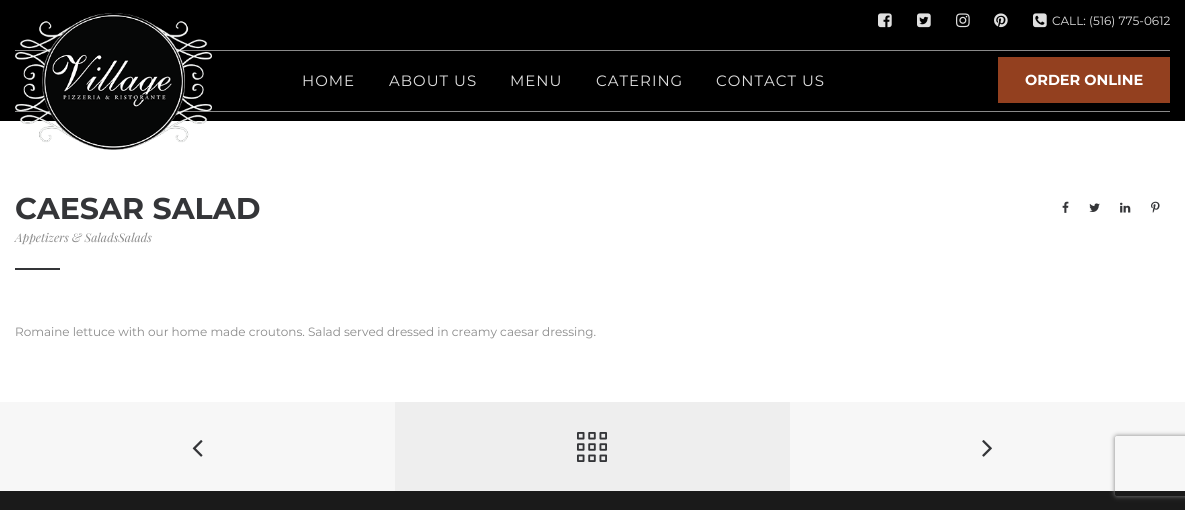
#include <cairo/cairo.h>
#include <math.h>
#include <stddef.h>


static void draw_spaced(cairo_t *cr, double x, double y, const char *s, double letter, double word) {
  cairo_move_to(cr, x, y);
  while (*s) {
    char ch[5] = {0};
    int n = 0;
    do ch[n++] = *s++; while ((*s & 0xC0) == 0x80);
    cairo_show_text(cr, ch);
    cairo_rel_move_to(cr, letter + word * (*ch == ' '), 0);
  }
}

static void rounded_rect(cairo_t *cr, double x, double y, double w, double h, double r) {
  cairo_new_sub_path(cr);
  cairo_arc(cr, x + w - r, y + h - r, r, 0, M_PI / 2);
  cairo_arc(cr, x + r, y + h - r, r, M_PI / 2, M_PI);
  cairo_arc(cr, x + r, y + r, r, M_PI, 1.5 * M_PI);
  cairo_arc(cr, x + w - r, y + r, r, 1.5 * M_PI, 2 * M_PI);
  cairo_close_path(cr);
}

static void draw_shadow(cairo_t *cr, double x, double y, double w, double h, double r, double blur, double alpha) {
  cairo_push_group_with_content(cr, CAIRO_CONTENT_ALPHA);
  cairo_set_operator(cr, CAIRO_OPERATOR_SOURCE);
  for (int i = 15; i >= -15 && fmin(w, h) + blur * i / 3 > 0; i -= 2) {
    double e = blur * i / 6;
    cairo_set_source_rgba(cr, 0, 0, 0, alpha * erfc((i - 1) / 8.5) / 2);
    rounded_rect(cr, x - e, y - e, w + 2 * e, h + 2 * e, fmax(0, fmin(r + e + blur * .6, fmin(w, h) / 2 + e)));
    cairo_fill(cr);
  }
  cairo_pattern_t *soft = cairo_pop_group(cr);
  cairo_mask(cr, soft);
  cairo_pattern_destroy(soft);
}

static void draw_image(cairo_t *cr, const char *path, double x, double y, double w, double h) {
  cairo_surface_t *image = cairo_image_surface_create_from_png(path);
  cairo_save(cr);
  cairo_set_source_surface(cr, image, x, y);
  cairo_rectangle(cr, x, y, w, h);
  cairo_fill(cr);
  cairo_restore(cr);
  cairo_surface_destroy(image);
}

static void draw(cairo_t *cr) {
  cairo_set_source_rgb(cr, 1, 1, 1);
  cairo_paint(cr);
  cairo_set_source_rgb(cr, 0, 0, 0);
  cairo_rectangle(cr, 0, 0, 1185, 121);
  cairo_fill(cr);
  draw_image(cr, "images/1.png", 878, 13, 14, 15);
  draw_image(cr, "images/2.png", 917, 13, 14, 15);
  draw_image(cr, "images/3.png", 956, 13, 14, 15);
  draw_image(cr, "images/4.png", 994, 13, 14, 15);
  draw_image(cr, "images/5.png", 1033, 13, 14, 15);
  cairo_set_source_rgb(cr, 138 / 255.0, 138 / 255.0, 138 / 255.0);
  cairo_rectangle(cr, 15, 50, 1155, 1);
  cairo_fill(cr);
  cairo_rectangle(cr, 15, 111, 1155, 1);
  cairo_fill(cr);
  draw_image(cr, "images/6.png", 15, 13, 197, 137);
  cairo_set_source_rgb(cr, 147 / 255.0, 64 / 255.0, 31 / 255.0);
  cairo_rectangle(cr, 998, 57, 172, 46);
  cairo_fill(cr);
  draw_image(cr, "images/7.png", 1062, 201, 7, 12);
  draw_image(cr, "images/8.png", 1089, 203, 11, 9);
  draw_image(cr, "images/9.png", 1120, 202, 11, 11);
  draw_image(cr, "images/10.png", 1151, 201, 9, 12);
  cairo_set_source_rgb(cr, 52 / 255.0, 53 / 255.0, 56 / 255.0);
  cairo_rectangle(cr, 15, 268, 45, 2);
  cairo_fill(cr);
  cairo_set_source_rgb(cr, 247 / 255.0, 247 / 255.0, 247 / 255.0);
  cairo_rectangle(cr, 0, 402, 1185, 89);
  cairo_fill(cr);
  draw_image(cr, "images/11.png", 192, 440, 11, 17);
  cairo_set_source_rgb(cr, 238 / 255.0, 238 / 255.0, 238 / 255.0);
  cairo_rectangle(cr, 395, 402, 395, 89);
  cairo_fill(cr);
  draw_image(cr, "images/12.png", 577, 432, 30, 30);
  draw_image(cr, "images/13.png", 982, 440, 10, 17);
  cairo_set_source_rgb(cr, 26 / 255.0, 26 / 255.0, 26 / 255.0);
  cairo_rectangle(cr, 0, 491, 1185, 19);
  cairo_fill(cr);
  cairo_save(cr);
  cairo_set_fill_rule(cr, CAIRO_FILL_RULE_EVEN_ODD);
  cairo_new_path(cr);
  cairo_move_to(cr, 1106, 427);
  cairo_line_to(cr, 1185, 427);
  cairo_line_to(cr, 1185, 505);
  cairo_line_to(cr, 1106, 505);
  cairo_close_path(cr);
  cairo_move_to(cr, 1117, 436);
  cairo_line_to(cr, 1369, 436);
  cairo_curve_to(cr, 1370, 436, 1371, 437, 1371, 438);
  cairo_line_to(cr, 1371, 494);
  cairo_curve_to(cr, 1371, 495, 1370, 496, 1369, 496);
  cairo_line_to(cr, 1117, 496);
  cairo_curve_to(cr, 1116, 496, 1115, 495, 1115, 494);
  cairo_line_to(cr, 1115, 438);
  cairo_curve_to(cr, 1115, 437, 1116, 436, 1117, 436);
  cairo_close_path(cr);
  cairo_clip(cr);
  cairo_set_source_rgb(cr, 128 / 255.0, 128 / 255.0, 128 / 255.0);
  draw_shadow(cr, 1115, 436, 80, 60, 2, 2.5, 1);
  cairo_restore(cr);
  cairo_select_font_face(cr, "Montserrat", CAIRO_FONT_SLANT_NORMAL, CAIRO_FONT_WEIGHT_NORMAL);
  cairo_set_font_size(cr, 12);
  cairo_set_source_rgb(cr, 224 / 255.0, 224 / 255.0, 224 / 255.0);
  cairo_move_to(cr, 1052, 25);
  cairo_show_text(cr, "CALL: (516) 775-0612");
  cairo_set_font_size(cr, 15);
  draw_spaced(cr, 302, 86, "HOME", 1, 0);
  draw_spaced(cr, 389, 86, "ABOUT US", 1, 0);
  draw_spaced(cr, 510, 86, "MENU", 1, 0);
  draw_spaced(cr, 596, 86, "CATERING", 1, 0);
  draw_spaced(cr, 716, 86, "CONTACT US", 1, 0);
  cairo_select_font_face(cr, "Montserrat", CAIRO_FONT_SLANT_NORMAL, CAIRO_FONT_WEIGHT_BOLD);
  cairo_set_font_size(cr, 14.5);
  cairo_set_source_rgb(cr, 1, 1, 1);
  cairo_move_to(cr, 1025, 85);
  cairo_show_text(cr, "ORDER ONLINE");
  cairo_set_font_size(cr, 30);
  cairo_set_source_rgb(cr, 52 / 255.0, 53 / 255.0, 56 / 255.0);
  cairo_move_to(cr, 15, 219);
  cairo_show_text(cr, "CAESAR SALAD");
  cairo_select_font_face(cr, "Playfair Display", CAIRO_FONT_SLANT_ITALIC, CAIRO_FONT_WEIGHT_NORMAL);
  cairo_set_font_size(cr, 12);
  cairo_set_source_rgb(cr, 138 / 255.0, 138 / 255.0, 138 / 255.0);
  cairo_move_to(cr, 15, 242);
  cairo_show_text(cr, "Appetizers & SaladsSalads");
  cairo_select_font_face(cr, "Montserrat", CAIRO_FONT_SLANT_NORMAL, CAIRO_FONT_WEIGHT_NORMAL);
  cairo_move_to(cr, 15, 336);
  cairo_show_text(cr, "Romaine lettuce with our home made croutons. Salad served dressed in creamy caesar dressing.");
}

int main(void) {
  cairo_surface_t *surface = cairo_image_surface_create(CAIRO_FORMAT_RGB24, 1185, 510);
  cairo_t *cr = cairo_create(surface);
  cairo_font_options_t *options = cairo_font_options_create();
  cairo_font_options_set_hint_metrics(options, CAIRO_HINT_METRICS_OFF);
  cairo_font_options_set_hint_style(options, CAIRO_HINT_STYLE_NONE);
  cairo_set_font_options(cr, options);
  cairo_set_miter_limit(cr, 4);
  draw(cr);
  cairo_surface_write_to_png(surface, "out.png");
  cairo_font_options_destroy(options);
  cairo_destroy(cr);
  cairo_surface_destroy(surface);
  return 0;
}
